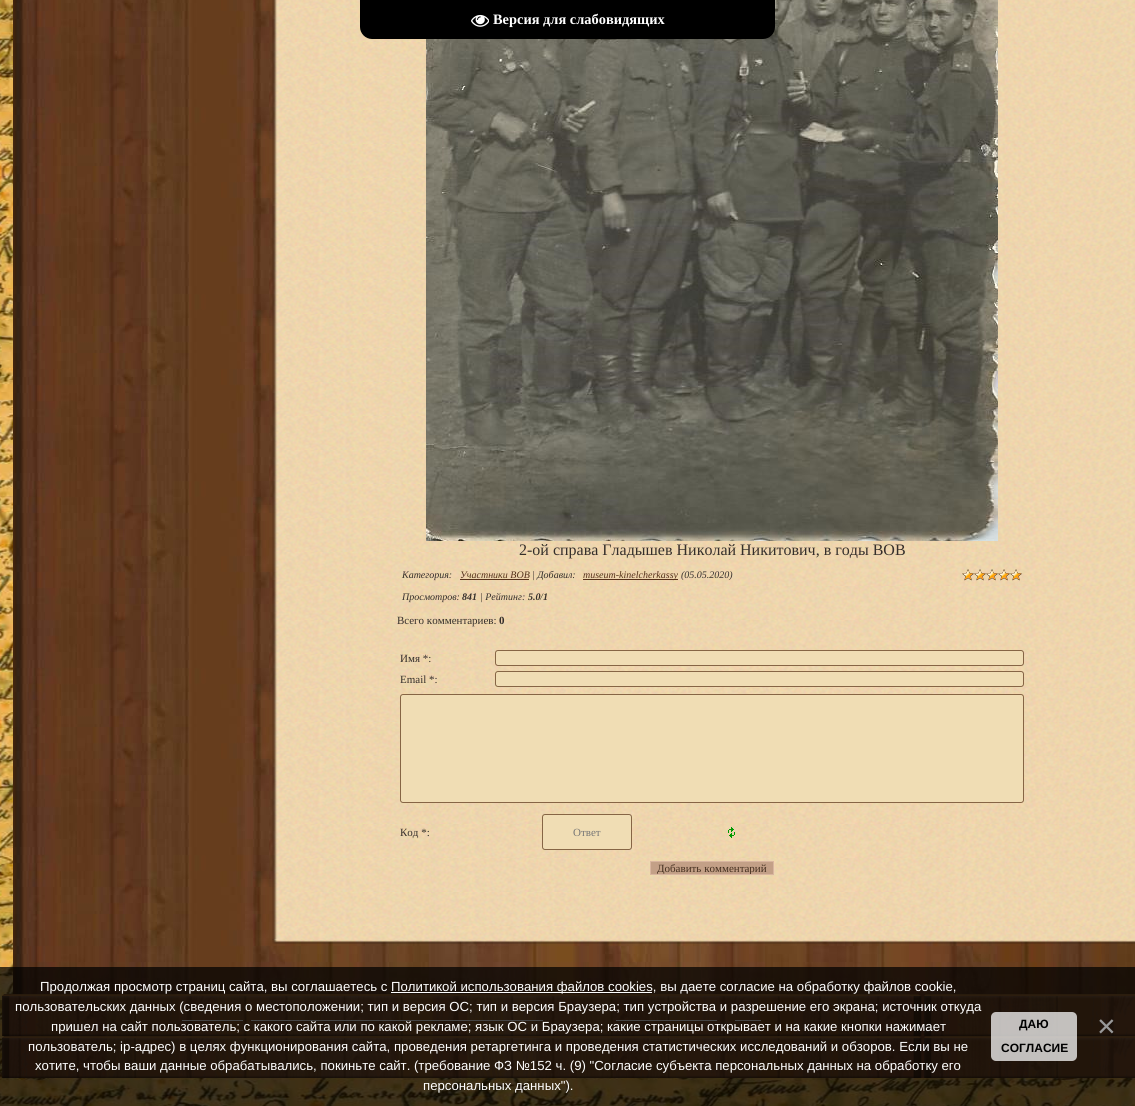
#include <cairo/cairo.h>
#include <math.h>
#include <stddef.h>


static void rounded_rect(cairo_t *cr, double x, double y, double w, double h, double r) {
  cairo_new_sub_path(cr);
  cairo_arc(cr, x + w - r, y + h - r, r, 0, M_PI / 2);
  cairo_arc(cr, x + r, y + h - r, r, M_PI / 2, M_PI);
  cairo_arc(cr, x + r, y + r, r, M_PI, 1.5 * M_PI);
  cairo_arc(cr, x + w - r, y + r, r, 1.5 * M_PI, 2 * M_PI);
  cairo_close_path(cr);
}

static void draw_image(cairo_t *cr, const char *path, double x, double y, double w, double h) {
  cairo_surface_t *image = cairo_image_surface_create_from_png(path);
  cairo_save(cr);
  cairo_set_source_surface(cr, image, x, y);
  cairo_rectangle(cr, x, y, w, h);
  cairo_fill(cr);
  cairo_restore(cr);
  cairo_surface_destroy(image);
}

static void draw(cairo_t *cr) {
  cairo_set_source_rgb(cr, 1, 1, 1);
  cairo_paint(cr);
  draw_image(cr, "images/2.png", 0, 0, 1135, 1106);
  draw_image(cr, "images/3.png", 13, 0, 1122, 1078);
  draw_image(cr, "images/4.png", 272, 939, 863, 5);
  draw_image(cr, "images/5.png", 272, 0, 863, 940);
  draw_image(cr, "images/6.png", 426, 0, 572, 541);
  cairo_set_source_rgb(cr, 0, 0, 0);
  cairo_new_path(cr);
  cairo_move_to(cr, 360, 0);
  cairo_line_to(cr, 775, 0);
  cairo_line_to(cr, 775, 27);
  cairo_curve_to(cr, 775, 33.5, 769.5, 39, 763, 39);
  cairo_line_to(cr, 372, 39);
  cairo_curve_to(cr, 365.5, 39, 360, 33.5, 360, 27);
  cairo_close_path(cr);
  cairo_fill(cr);
  draw_image(cr, "images/1.png", 471, 14, 18, 13);
  cairo_set_source_rgb(cr, 85 / 255.0, 49 / 255.0, 26 / 255.0);
  cairo_rectangle(cr, 460, 579, 69, 1);
  cairo_fill(cr);
  cairo_rectangle(cr, 583, 579, 95, 1);
  cairo_fill(cr);
  draw_image(cr, "images/7.png", 962, 569, 60, 12);
  draw_image(cr, "images/8.png", 962, 569, 60, 12);
  cairo_set_source_rgb(cr, 240 / 255.0, 221 / 255.0, 180 / 255.0);
  rounded_rect(cr, 495.5, 650.5, 528, 15, 2.5);
  cairo_fill_preserve(cr);
  cairo_set_source_rgb(cr, 134 / 255.0, 101 / 255.0, 69 / 255.0);
  cairo_set_line_width(cr, 1);
  cairo_stroke(cr);
  cairo_set_source_rgb(cr, 240 / 255.0, 221 / 255.0, 180 / 255.0);
  rounded_rect(cr, 495.5, 671.5, 528, 15, 2.5);
  cairo_fill_preserve(cr);
  cairo_set_source_rgb(cr, 134 / 255.0, 101 / 255.0, 69 / 255.0);
  cairo_stroke(cr);
  cairo_set_source_rgb(cr, 240 / 255.0, 221 / 255.0, 180 / 255.0);
  rounded_rect(cr, 400.5, 694.5, 623, 108, 2.5);
  cairo_fill_preserve(cr);
  cairo_set_source_rgb(cr, 134 / 255.0, 101 / 255.0, 69 / 255.0);
  cairo_stroke(cr);
  cairo_set_source_rgb(cr, 240 / 255.0, 221 / 255.0, 180 / 255.0);
  rounded_rect(cr, 542.5, 814.5, 89, 35, 2.5);
  cairo_fill_preserve(cr);
  cairo_set_source_rgb(cr, 134 / 255.0, 101 / 255.0, 69 / 255.0);
  cairo_stroke(cr);
  draw_image(cr, "images/9.png", 728, 827, 7, 11);
  cairo_set_source_rgb(cr, 195 / 255.0, 160 / 255.0, 135 / 255.0);
  cairo_rectangle(cr, 650.5, 861.5, 123, 13);
  cairo_fill_preserve(cr);
  cairo_set_source_rgb(cr, 217 / 255.0, 182 / 255.0, 160 / 255.0);
  cairo_stroke(cr);
  draw_image(cr, "images/10.png", 2, 994, 1133, 84);
  cairo_set_source_rgb(cr, 1, 1, 1);
  cairo_rectangle(cr, 182, 1020, 61, 1);
  cairo_fill(cr);
  cairo_rectangle(cr, 251, 1020, 292, 1);
  cairo_fill(cr);
  cairo_rectangle(cr, 616, 1020, 101, 1);
  cairo_fill(cr);
  cairo_rectangle(cr, 735, 1020, 26, 1);
  cairo_fill(cr);
  cairo_set_source_rgba(cr, 0, 0, 0, 0.73);
  cairo_rectangle(cr, 0, 967, 1135, 139);
  cairo_fill(cr);
  cairo_set_source_rgb(cr, 1, 1, 1);
  cairo_rectangle(cr, 391, 992, 261, 1);
  cairo_fill(cr);
  cairo_set_source_rgba(cr, 1, 1, 1, 0.73);
  rounded_rect(cr, 991, 1012, 86, 49, 5);
  cairo_fill(cr);
  cairo_select_font_face(cr, "Liberation Serif", CAIRO_FONT_SLANT_NORMAL, CAIRO_FONT_WEIGHT_BOLD);
  cairo_set_font_size(cr, 14.4);
  cairo_set_source_rgb(cr, 1, 1, 1);
  cairo_move_to(cr, 493, 24);
  cairo_show_text(cr, "Версия для слабовидящих");
  cairo_select_font_face(cr, "Liberation Serif", CAIRO_FONT_SLANT_NORMAL, CAIRO_FONT_WEIGHT_NORMAL);
  cairo_set_font_size(cr, 16);
  cairo_set_source_rgb(cr, 53 / 255.0, 47 / 255.0, 43 / 255.0);
  cairo_move_to(cr, 519, 555);
  cairo_show_text(cr, "2-ой справа Гладышев Николай Никитович, в годы ВОВ");
  cairo_select_font_face(cr, "Liberation Serif", CAIRO_FONT_SLANT_ITALIC, CAIRO_FONT_WEIGHT_NORMAL);
  cairo_set_font_size(cr, 10);
  cairo_move_to(cr, 402, 578);
  cairo_show_text(cr, "Категория:");
  cairo_set_source_rgb(cr, 85 / 255.0, 49 / 255.0, 26 / 255.0);
  cairo_move_to(cr, 460, 578);
  cairo_show_text(cr, "Участники ВОВ");
  cairo_set_source_rgb(cr, 53 / 255.0, 47 / 255.0, 43 / 255.0);
  cairo_move_to(cr, 532, 578);
  cairo_show_text(cr, "| Добавил:");
  cairo_set_source_rgb(cr, 85 / 255.0, 49 / 255.0, 26 / 255.0);
  cairo_move_to(cr, 583, 578);
  cairo_show_text(cr, "museum-kinelcherkassy");
  cairo_set_source_rgb(cr, 53 / 255.0, 47 / 255.0, 43 / 255.0);
  cairo_move_to(cr, 681, 578);
  cairo_show_text(cr, "(05.05.2020)");
  cairo_move_to(cr, 402, 600);
  cairo_show_text(cr, "Просмотров:");
  cairo_select_font_face(cr, "Liberation Serif", CAIRO_FONT_SLANT_ITALIC, CAIRO_FONT_WEIGHT_BOLD);
  cairo_move_to(cr, 462, 600);
  cairo_show_text(cr, "841");
  cairo_select_font_face(cr, "Liberation Serif", CAIRO_FONT_SLANT_ITALIC, CAIRO_FONT_WEIGHT_NORMAL);
  cairo_move_to(cr, 480, 600);
  cairo_show_text(cr, "| Рейтинг:");
  cairo_select_font_face(cr, "Liberation Serif", CAIRO_FONT_SLANT_ITALIC, CAIRO_FONT_WEIGHT_BOLD);
  cairo_move_to(cr, 528, 600);
  cairo_show_text(cr, "5.0");
  cairo_select_font_face(cr, "Liberation Serif", CAIRO_FONT_SLANT_ITALIC, CAIRO_FONT_WEIGHT_NORMAL);
  cairo_move_to(cr, 540, 600);
  cairo_show_text(cr, "/");
  cairo_select_font_face(cr, "Liberation Serif", CAIRO_FONT_SLANT_ITALIC, CAIRO_FONT_WEIGHT_BOLD);
  cairo_move_to(cr, 543, 600);
  cairo_show_text(cr, "1");
  cairo_select_font_face(cr, "Liberation Serif", CAIRO_FONT_SLANT_NORMAL, CAIRO_FONT_WEIGHT_NORMAL);
  cairo_set_font_size(cr, 11);
  cairo_move_to(cr, 397, 624);
  cairo_show_text(cr, "Всего комментариев:");
  cairo_select_font_face(cr, "Liberation Serif", CAIRO_FONT_SLANT_NORMAL, CAIRO_FONT_WEIGHT_BOLD);
  cairo_move_to(cr, 499, 624);
  cairo_show_text(cr, "0");
  cairo_select_font_face(cr, "Liberation Serif", CAIRO_FONT_SLANT_NORMAL, CAIRO_FONT_WEIGHT_NORMAL);
  cairo_move_to(cr, 400, 662);
  cairo_show_text(cr, "Имя *:");
  cairo_move_to(cr, 400, 683);
  cairo_show_text(cr, "Email *:");
  cairo_move_to(cr, 400, 836);
  cairo_show_text(cr, "Код *:");
  cairo_set_source_rgb(cr, 117 / 255.0, 117 / 255.0, 117 / 255.0);
  cairo_move_to(cr, 573, 836);
  cairo_show_text(cr, "Ответ");
  cairo_save(cr);
  cairo_rectangle(cr, 651, 862, 122, 12);
  cairo_clip(cr);
  cairo_set_source_rgb(cr, 68 / 255.0, 47 / 255.0, 31 / 255.0);
  cairo_move_to(cr, 657, 872);
  cairo_show_text(cr, "Добавить комментарий");
  cairo_restore(cr);
  cairo_select_font_face(cr, "Liberation Sans", CAIRO_FONT_SLANT_NORMAL, CAIRO_FONT_WEIGHT_NORMAL);
  cairo_set_font_size(cr, 13.2);
  cairo_set_source_rgb(cr, 1, 1, 1);
  cairo_move_to(cr, 40, 991);
  cairo_show_text(cr, "Продолжая просмотр страниц сайта, вы соглашаетесь с");
  cairo_move_to(cr, 391, 991);
  cairo_show_text(cr, "Политикой использования файлов cookies, вы даете согласие на обработку файлов cookie,");
  cairo_move_to(cr, 15, 1011);
  cairo_show_text(cr, "пользовательских данных (сведения о местоположении; тип и версия ОС; тип и версия Браузера; тип устройства и разрешение его экрана; источник откуда");
  cairo_move_to(cr, 51, 1031);
  cairo_show_text(cr, "пришел на сайт пользователь; с какого сайта или по какой рекламе; язык ОС и Браузера; какие страницы открывает и на какие кнопки нажимает");
  cairo_move_to(cr, 28, 1051);
  cairo_show_text(cr, "пользователь; ip-адрес) в целях функционирования сайта, проведения ретаргетинга и проведения статистических исследований и обзоров. Если вы не");
  cairo_move_to(cr, 35, 1070);
  cairo_show_text(cr, "хотите, чтобы ваши данные обрабатывались, покиньте сайт. (требование ФЗ №152 ч. (9) \"Согласие субъекта персональных данных на обработку его");
  cairo_move_to(cr, 423, 1090);
  cairo_show_text(cr, "персональных данных\").");
  cairo_select_font_face(cr, "Liberation Sans", CAIRO_FONT_SLANT_NORMAL, CAIRO_FONT_WEIGHT_BOLD);
  cairo_set_font_size(cr, 12);
  cairo_set_source_rgb(cr, 0, 0, 0);
  cairo_move_to(cr, 1019, 1028);
  cairo_show_text(cr, "ДАЮ");
  cairo_move_to(cr, 1001, 1052);
  cairo_show_text(cr, "СОГЛАСИЕ");
  cairo_select_font_face(cr, "Liberation Sans", CAIRO_FONT_SLANT_NORMAL, CAIRO_FONT_WEIGHT_NORMAL);
  cairo_set_font_size(cr, 32);
  cairo_set_source_rgb(cr, 153 / 255.0, 153 / 255.0, 153 / 255.0);
  cairo_move_to(cr, 1097, 1037);
  cairo_show_text(cr, "×");
}

int main(void) {
  cairo_surface_t *surface = cairo_image_surface_create(CAIRO_FORMAT_RGB24, 1135, 1106);
  cairo_t *cr = cairo_create(surface);
  cairo_font_options_t *options = cairo_font_options_create();
  cairo_font_options_set_hint_metrics(options, CAIRO_HINT_METRICS_OFF);
  cairo_font_options_set_hint_style(options, CAIRO_HINT_STYLE_NONE);
  cairo_set_font_options(cr, options);
  cairo_set_miter_limit(cr, 4);
  draw(cr);
  cairo_surface_write_to_png(surface, "out.png");
  cairo_font_options_destroy(options);
  cairo_destroy(cr);
  cairo_surface_destroy(surface);
  return 0;
}
